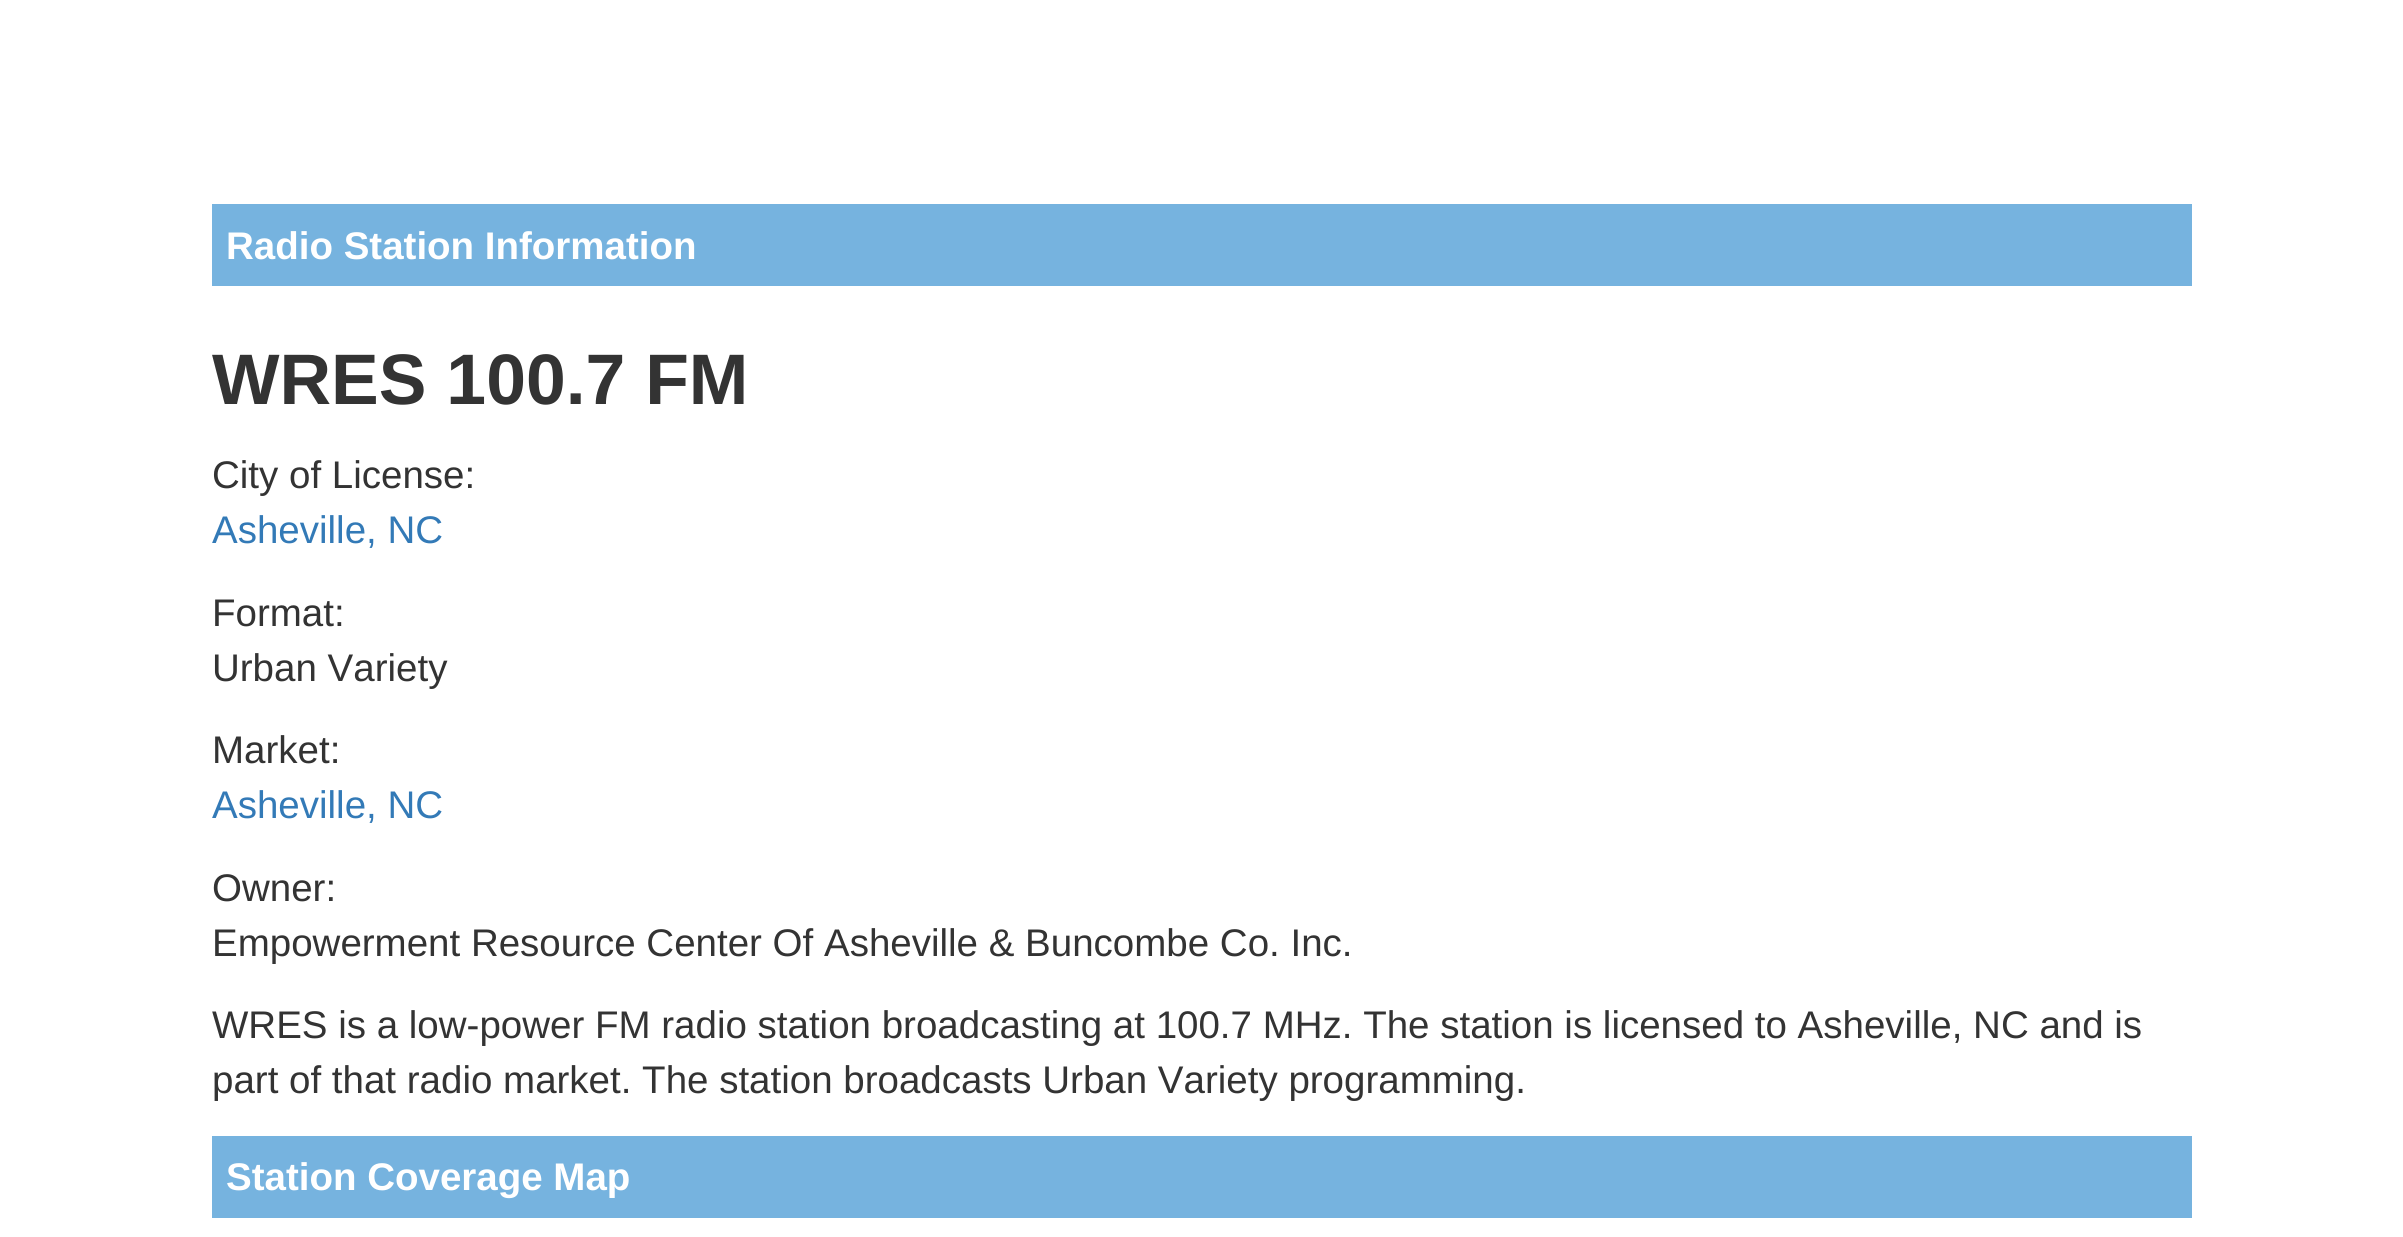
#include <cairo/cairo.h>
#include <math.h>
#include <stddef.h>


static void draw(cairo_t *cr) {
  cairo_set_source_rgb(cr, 1, 1, 1);
  cairo_paint(cr);
  cairo_set_source_rgb(cr, 118 / 255.0, 179 / 255.0, 223 / 255.0);
  cairo_rectangle(cr, 212, 204, 1980, 82);
  cairo_fill(cr);
  cairo_rectangle(cr, 212, 1136, 1980, 82);
  cairo_fill(cr);
  cairo_select_font_face(cr, "Liberation Sans", CAIRO_FONT_SLANT_NORMAL, CAIRO_FONT_WEIGHT_BOLD);
  cairo_set_font_size(cr, 38.5);
  cairo_set_source_rgb(cr, 1, 1, 1);
  cairo_move_to(cr, 226, 259);
  cairo_show_text(cr, "Radio Station Information");
  cairo_set_font_size(cr, 71.5);
  cairo_set_source_rgb(cr, 51 / 255.0, 51 / 255.0, 51 / 255.0);
  cairo_move_to(cr, 212, 404);
  cairo_show_text(cr, "WRES 100.7 FM");
  cairo_select_font_face(cr, "Liberation Sans", CAIRO_FONT_SLANT_NORMAL, CAIRO_FONT_WEIGHT_NORMAL);
  cairo_set_font_size(cr, 38.5);
  cairo_move_to(cr, 212, 488);
  cairo_show_text(cr, "City of License:");
  cairo_set_source_rgb(cr, 51 / 255.0, 122 / 255.0, 183 / 255.0);
  cairo_move_to(cr, 212, 543);
  cairo_show_text(cr, "Asheville, NC");
  cairo_set_source_rgb(cr, 51 / 255.0, 51 / 255.0, 51 / 255.0);
  cairo_move_to(cr, 212, 626);
  cairo_show_text(cr, "Format:");
  cairo_move_to(cr, 212, 681);
  cairo_show_text(cr, "Urban Variety");
  cairo_move_to(cr, 212, 763);
  cairo_show_text(cr, "Market:");
  cairo_set_source_rgb(cr, 51 / 255.0, 122 / 255.0, 183 / 255.0);
  cairo_move_to(cr, 212, 818);
  cairo_show_text(cr, "Asheville, NC");
  cairo_set_source_rgb(cr, 51 / 255.0, 51 / 255.0, 51 / 255.0);
  cairo_move_to(cr, 212, 901);
  cairo_show_text(cr, "Owner:");
  cairo_move_to(cr, 212, 956);
  cairo_show_text(cr, "Empowerment Resource Center Of Asheville & Buncombe Co. Inc.");
  cairo_move_to(cr, 212, 1038);
  cairo_show_text(cr, "WRES is a low-power FM radio station broadcasting at 100.7 MHz. The station is licensed to Asheville, NC and is");
  cairo_move_to(cr, 212, 1093);
  cairo_show_text(cr, "part of that radio market. The station broadcasts Urban Variety programming.");
  cairo_select_font_face(cr, "Liberation Sans", CAIRO_FONT_SLANT_NORMAL, CAIRO_FONT_WEIGHT_BOLD);
  cairo_set_source_rgb(cr, 1, 1, 1);
  cairo_move_to(cr, 226, 1190);
  cairo_show_text(cr, "Station Coverage Map");
}

int main(void) {
  cairo_surface_t *surface = cairo_image_surface_create(CAIRO_FORMAT_RGB24, 2403, 1237);
  cairo_t *cr = cairo_create(surface);
  cairo_font_options_t *options = cairo_font_options_create();
  cairo_font_options_set_hint_metrics(options, CAIRO_HINT_METRICS_OFF);
  cairo_font_options_set_hint_style(options, CAIRO_HINT_STYLE_NONE);
  cairo_set_font_options(cr, options);
  cairo_set_miter_limit(cr, 4);
  draw(cr);
  cairo_surface_write_to_png(surface, "out.png");
  cairo_font_options_destroy(options);
  cairo_destroy(cr);
  cairo_surface_destroy(surface);
  return 0;
}
